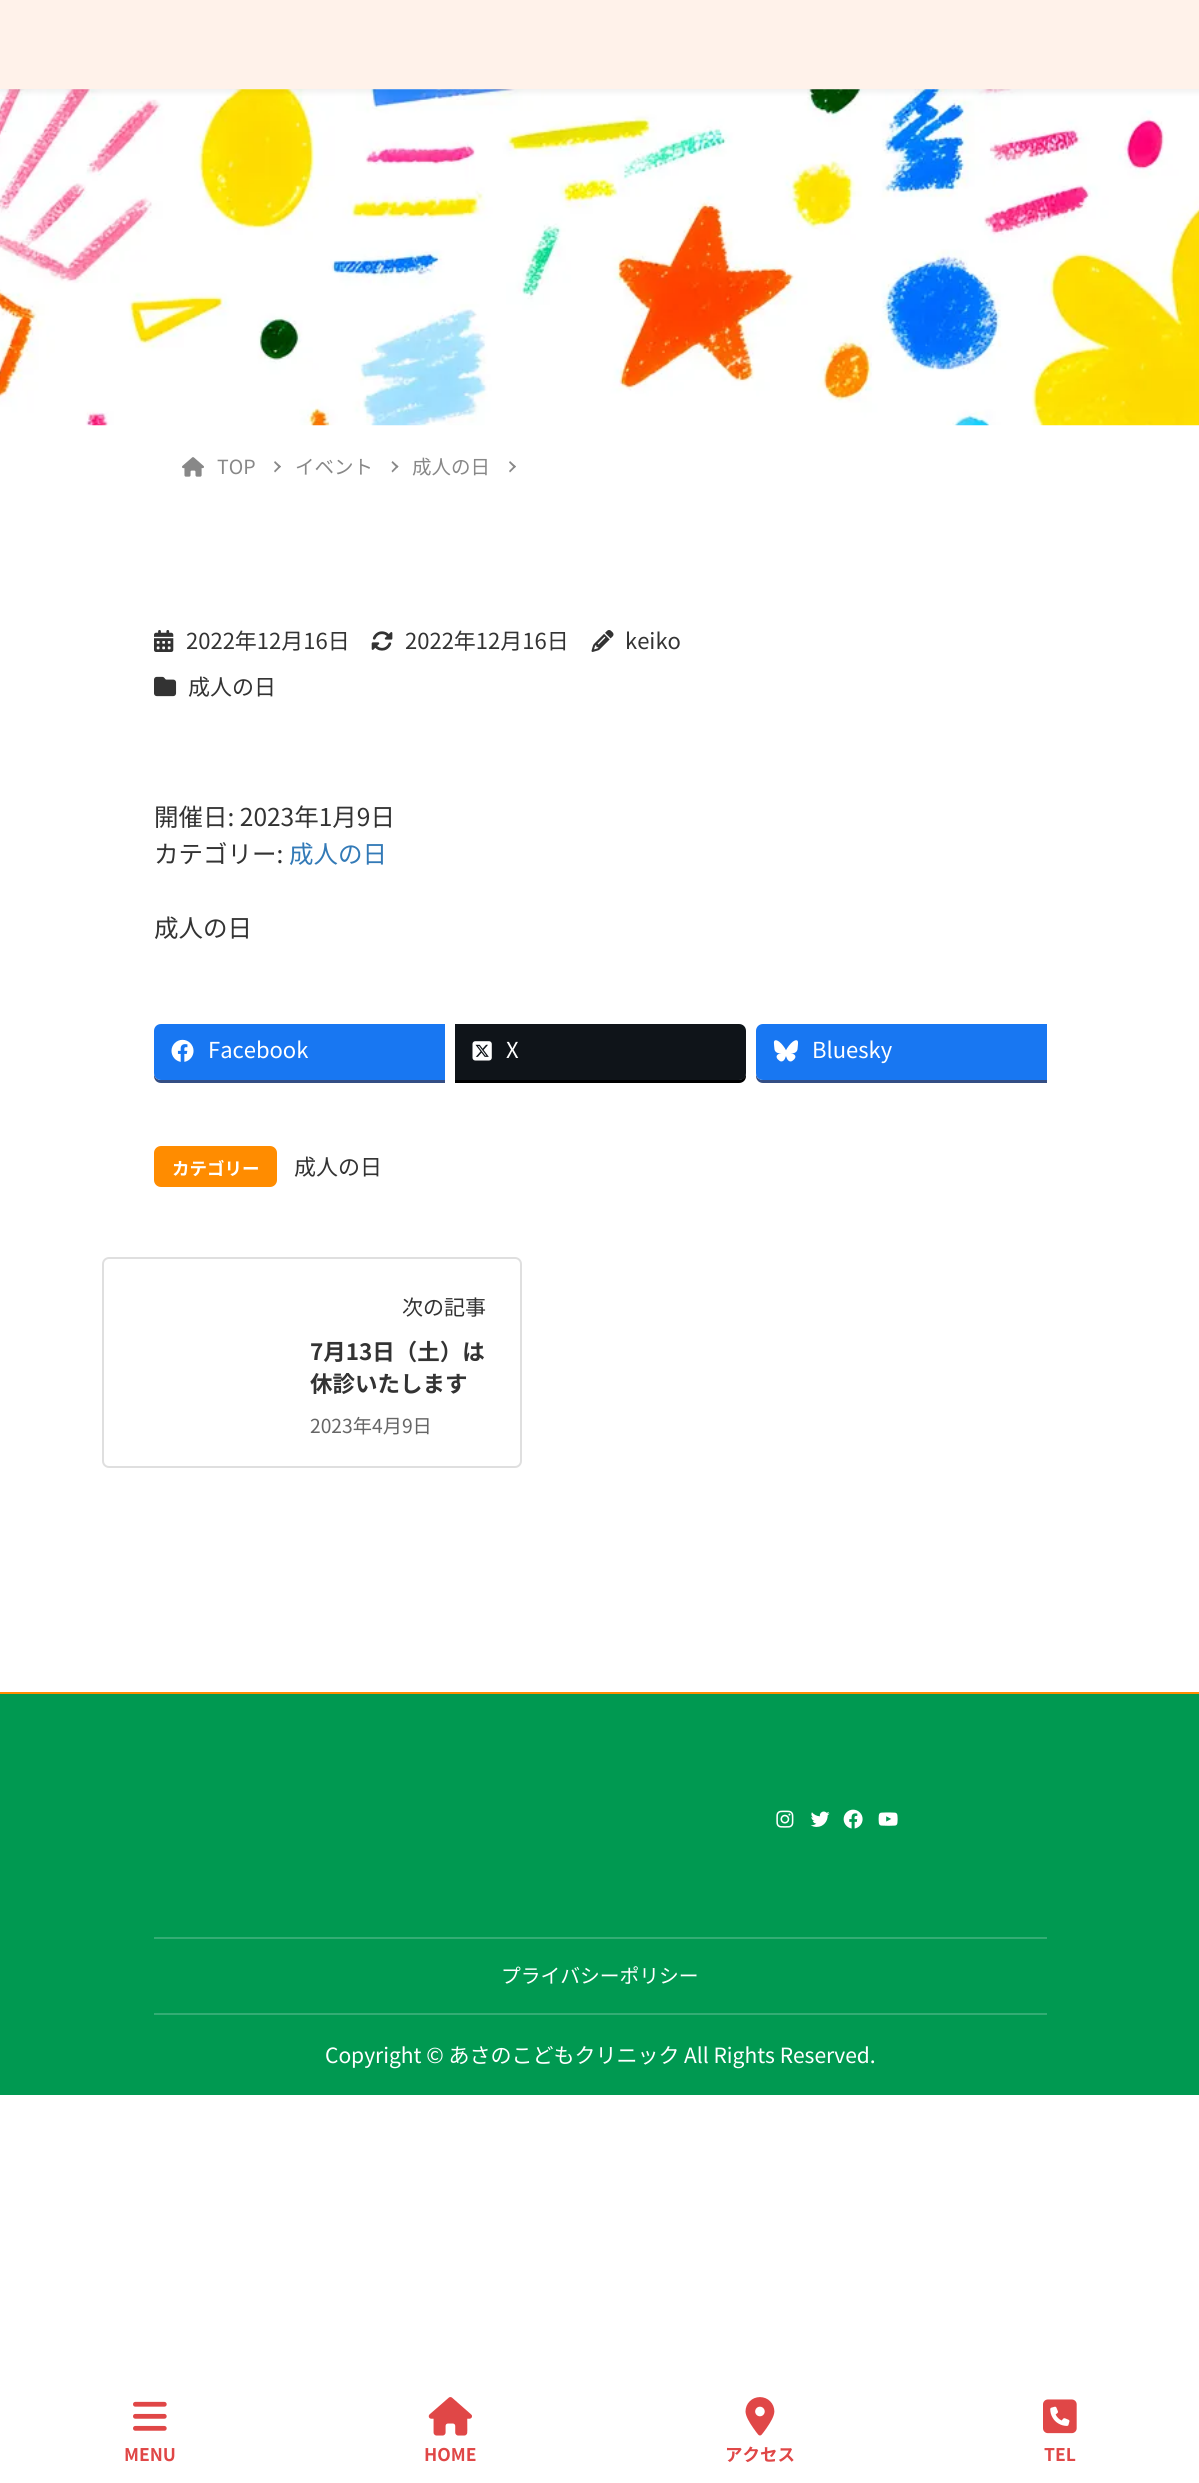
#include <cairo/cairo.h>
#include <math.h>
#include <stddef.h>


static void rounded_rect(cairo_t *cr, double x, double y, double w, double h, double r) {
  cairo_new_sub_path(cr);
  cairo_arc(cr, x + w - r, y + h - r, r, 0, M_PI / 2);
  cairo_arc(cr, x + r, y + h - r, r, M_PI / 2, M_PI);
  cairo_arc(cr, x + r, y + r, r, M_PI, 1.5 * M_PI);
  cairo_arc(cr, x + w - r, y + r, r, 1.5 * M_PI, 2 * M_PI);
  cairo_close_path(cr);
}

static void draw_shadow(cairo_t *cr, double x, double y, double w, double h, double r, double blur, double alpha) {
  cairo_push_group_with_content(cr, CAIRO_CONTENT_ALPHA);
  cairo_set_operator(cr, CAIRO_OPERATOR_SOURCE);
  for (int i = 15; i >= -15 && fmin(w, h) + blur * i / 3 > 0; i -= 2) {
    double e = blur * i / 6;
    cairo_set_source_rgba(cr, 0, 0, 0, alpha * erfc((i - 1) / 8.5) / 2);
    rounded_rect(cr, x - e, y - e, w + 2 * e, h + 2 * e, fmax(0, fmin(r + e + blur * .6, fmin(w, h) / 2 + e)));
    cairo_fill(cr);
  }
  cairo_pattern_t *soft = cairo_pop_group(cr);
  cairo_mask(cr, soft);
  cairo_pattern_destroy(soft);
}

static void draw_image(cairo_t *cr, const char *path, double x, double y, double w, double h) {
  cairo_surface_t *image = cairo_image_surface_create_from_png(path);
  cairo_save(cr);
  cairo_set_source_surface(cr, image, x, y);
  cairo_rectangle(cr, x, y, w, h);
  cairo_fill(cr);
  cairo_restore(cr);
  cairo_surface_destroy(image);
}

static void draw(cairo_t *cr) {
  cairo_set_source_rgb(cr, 1, 1, 1);
  cairo_paint(cr);
  draw_image(cr, "images/1.png", 0, 89, 1199, 337);
  cairo_set_source_rgb(cr, 0, 0, 0);
  draw_shadow(cr, -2, 0, 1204, 93, 0, 2, 0.05);
  cairo_set_source_rgb(cr, 1, 242 / 255.0, 234 / 255.0);
  cairo_rectangle(cr, 0, 0, 1199, 89);
  cairo_fill(cr);
  draw_image(cr, "images/2.png", 182, 457, 22, 20);
  cairo_set_source_rgb(cr, 136 / 255.0, 136 / 255.0, 136 / 255.0);
  cairo_new_path(cr);
  cairo_move_to(cr, 275, 461);
  cairo_line_to(cr, 281, 466.5);
  cairo_line_to(cr, 279.5, 468);
  cairo_line_to(cr, 274, 462.5);
  cairo_close_path(cr);
  cairo_fill(cr);
  cairo_new_path(cr);
  cairo_move_to(cr, 279.5, 465.5);
  cairo_line_to(cr, 281, 466.5);
  cairo_line_to(cr, 275, 472.5);
  cairo_line_to(cr, 274, 471);
  cairo_close_path(cr);
  cairo_fill(cr);
  cairo_new_path(cr);
  cairo_move_to(cr, 392.5, 461);
  cairo_line_to(cr, 398.5, 466.5);
  cairo_line_to(cr, 397, 468);
  cairo_line_to(cr, 391.5, 462.5);
  cairo_close_path(cr);
  cairo_fill(cr);
  cairo_new_path(cr);
  cairo_move_to(cr, 397, 465.5);
  cairo_line_to(cr, 398.5, 466.5);
  cairo_line_to(cr, 392.5, 472.5);
  cairo_line_to(cr, 391.5, 471);
  cairo_close_path(cr);
  cairo_fill(cr);
  cairo_new_path(cr);
  cairo_move_to(cr, 510, 461);
  cairo_line_to(cr, 516, 466.5);
  cairo_line_to(cr, 514.5, 468);
  cairo_line_to(cr, 509, 462.5);
  cairo_close_path(cr);
  cairo_fill(cr);
  cairo_new_path(cr);
  cairo_move_to(cr, 514.5, 465.5);
  cairo_line_to(cr, 516, 466.5);
  cairo_line_to(cr, 510, 472.5);
  cairo_line_to(cr, 509, 471);
  cairo_close_path(cr);
  cairo_fill(cr);
  draw_image(cr, "images/3.png", 154, 630, 20, 22);
  draw_image(cr, "images/4.png", 371, 631, 22, 20);
  draw_image(cr, "images/5.png", 591, 630, 23, 22);
  draw_image(cr, "images/6.png", 154, 676, 23, 21);
  cairo_set_source_rgb(cr, 52 / 255.0, 78 / 255.0, 132 / 255.0);
  cairo_new_path(cr);
  cairo_move_to(cr, 154, 1073);
  cairo_line_to(cr, 154, 1076);
  cairo_curve_to(cr, 154, 1080, 157, 1083, 161, 1083);
  cairo_line_to(cr, 445, 1083);
  cairo_line_to(cr, 445, 1027);
  cairo_line_to(cr, 444, 1027);
  cairo_line_to(cr, 444, 1080);
  cairo_line_to(cr, 161, 1080);
  cairo_curve_to(cr, 157, 1080, 154, 1077, 154, 1073);
  cairo_close_path(cr);
  cairo_fill(cr);
  cairo_set_source_rgb(cr, 24 / 255.0, 119 / 255.0, 242 / 255.0);
  cairo_new_path(cr);
  cairo_move_to(cr, 161, 1024);
  cairo_line_to(cr, 445, 1024);
  cairo_line_to(cr, 445, 1080);
  cairo_line_to(cr, 161, 1080);
  cairo_curve_to(cr, 157, 1080, 154, 1077, 154, 1073);
  cairo_line_to(cr, 154, 1031);
  cairo_curve_to(cr, 154, 1027, 157, 1024, 161, 1024);
  cairo_close_path(cr);
  cairo_fill(cr);
  draw_image(cr, "images/7.png", 171, 1039, 23, 23);
  cairo_set_source_rgb(cr, 0, 0, 0);
  cairo_new_path(cr);
  cairo_move_to(cr, 455, 1080);
  cairo_line_to(cr, 455, 1083);
  cairo_line_to(cr, 739, 1083);
  cairo_curve_to(cr, 743, 1083, 746, 1080, 746, 1076);
  cairo_line_to(cr, 746, 1034);
  cairo_line_to(cr, 746, 1031);
  cairo_line_to(cr, 746, 1073);
  cairo_curve_to(cr, 746, 1077, 742, 1080, 738, 1080);
  cairo_close_path(cr);
  cairo_fill(cr);
  cairo_set_source_rgb(cr, 15 / 255.0, 20 / 255.0, 25 / 255.0);
  cairo_new_path(cr);
  cairo_move_to(cr, 455, 1024);
  cairo_line_to(cr, 739, 1024);
  cairo_curve_to(cr, 743, 1024, 746, 1027, 746, 1031);
  cairo_line_to(cr, 746, 1073);
  cairo_curve_to(cr, 746, 1077, 743, 1080, 739, 1080);
  cairo_line_to(cr, 455, 1080);
  cairo_close_path(cr);
  cairo_fill(cr);
  draw_image(cr, "images/8.png", 472, 1041, 20, 20);
  cairo_set_source_rgb(cr, 52 / 255.0, 78 / 255.0, 132 / 255.0);
  cairo_new_path(cr);
  cairo_move_to(cr, 756, 1073);
  cairo_line_to(cr, 756, 1076);
  cairo_curve_to(cr, 756, 1080, 759, 1083, 763, 1083);
  cairo_line_to(cr, 1047, 1083);
  cairo_line_to(cr, 1047, 1027);
  cairo_line_to(cr, 1046, 1027);
  cairo_line_to(cr, 1046, 1080);
  cairo_line_to(cr, 763, 1080);
  cairo_curve_to(cr, 759, 1080, 756, 1077, 756, 1073);
  cairo_close_path(cr);
  cairo_fill(cr);
  cairo_set_source_rgb(cr, 24 / 255.0, 119 / 255.0, 242 / 255.0);
  cairo_new_path(cr);
  cairo_move_to(cr, 763, 1024);
  cairo_line_to(cr, 1047, 1024);
  cairo_line_to(cr, 1047, 1080);
  cairo_line_to(cr, 763, 1080);
  cairo_curve_to(cr, 759, 1080, 756, 1077, 756, 1073);
  cairo_line_to(cr, 756, 1031);
  cairo_curve_to(cr, 756, 1027, 759, 1024, 763, 1024);
  cairo_close_path(cr);
  cairo_fill(cr);
  draw_image(cr, "images/9.png", 773, 1040, 25, 22);
  cairo_set_source_rgb(cr, 1, 140 / 255.0, 0);
  rounded_rect(cr, 154, 1146, 123, 41, 7);
  cairo_fill(cr);
  rounded_rect(cr, 103, 1258, 418, 209, 6);
  cairo_set_source_rgb(cr, 223 / 255.0, 223 / 255.0, 223 / 255.0);
  cairo_stroke(cr);
  cairo_set_source_rgb(cr, 0, 153 / 255.0, 81 / 255.0);
  cairo_rectangle(cr, 0, 1694, 1199, 401);
  cairo_fill(cr);
  cairo_set_source_rgb(cr, 1, 140 / 255.0, 0);
  cairo_rectangle(cr, 0, 1692, 1199, 2);
  cairo_fill(cr);
  draw_image(cr, "images/10.png", 776, 1810, 18, 18);
  draw_image(cr, "images/11.png", 810, 1811, 20, 16);
  draw_image(cr, "images/12.png", 843, 1809, 20, 20);
  draw_image(cr, "images/13.png", 878, 1812, 20, 14);
  cairo_set_source_rgb(cr, 51 / 255.0, 173 / 255.0, 116 / 255.0);
  cairo_rectangle(cr, 154, 1937, 893, 2);
  cairo_fill(cr);
  cairo_rectangle(cr, 154, 2013, 893, 2);
  cairo_fill(cr);
  draw_image(cr, "images/14.png", 133, 2401, 34, 30);
  draw_image(cr, "images/15.png", 428, 2397, 44, 39);
  draw_image(cr, "images/16.png", 745, 2397, 30, 39);
  draw_image(cr, "images/17.png", 1043, 2399, 34, 35);
  cairo_select_font_face(cr, "Noto Sans JP", CAIRO_FONT_SLANT_NORMAL, CAIRO_FONT_WEIGHT_NORMAL);
  cairo_set_font_size(cr, 19.5);
  cairo_set_source_rgb(cr, 136 / 255.0, 136 / 255.0, 136 / 255.0);
  cairo_move_to(cr, 217, 474);
  cairo_show_text(cr, "TOP");
  cairo_move_to(cr, 295, 474);
  cairo_show_text(cr, "イベント");
  cairo_move_to(cr, 412, 474);
  cairo_show_text(cr, "成人の日");
  cairo_set_font_size(cr, 22);
  cairo_set_source_rgb(cr, 51 / 255.0, 51 / 255.0, 51 / 255.0);
  cairo_move_to(cr, 186, 649);
  cairo_show_text(cr, "2022年12月16日");
  cairo_move_to(cr, 405, 649);
  cairo_show_text(cr, "2022年12月16日");
  cairo_move_to(cr, 625, 649);
  cairo_show_text(cr, "keiko");
  cairo_move_to(cr, 188, 695);
  cairo_show_text(cr, "成人の日");
  cairo_set_font_size(cr, 24.5);
  cairo_move_to(cr, 154, 826);
  cairo_show_text(cr, "開催日: 2023年1月9日");
  cairo_move_to(cr, 154, 863);
  cairo_show_text(cr, "カテゴリー:");
  cairo_set_source_rgb(cr, 51 / 255.0, 122 / 255.0, 183 / 255.0);
  cairo_move_to(cr, 289, 863);
  cairo_show_text(cr, "成人の日");
  cairo_set_source_rgb(cr, 51 / 255.0, 51 / 255.0, 51 / 255.0);
  cairo_move_to(cr, 154, 937);
  cairo_show_text(cr, "成人の日");
  cairo_set_font_size(cr, 22);
  cairo_set_source_rgb(cr, 1, 1, 1);
  cairo_move_to(cr, 208, 1058);
  cairo_show_text(cr, "Facebook");
  cairo_move_to(cr, 506, 1058);
  cairo_show_text(cr, "X");
  cairo_move_to(cr, 812, 1058);
  cairo_show_text(cr, "Bluesky");
  cairo_select_font_face(cr, "Noto Sans JP", CAIRO_FONT_SLANT_NORMAL, CAIRO_FONT_WEIGHT_BOLD);
  cairo_set_font_size(cr, 17.5);
  cairo_move_to(cr, 172, 1175);
  cairo_show_text(cr, "カテゴリー");
  cairo_select_font_face(cr, "Noto Sans JP", CAIRO_FONT_SLANT_NORMAL, CAIRO_FONT_WEIGHT_NORMAL);
  cairo_set_font_size(cr, 22);
  cairo_set_source_rgb(cr, 51 / 255.0, 51 / 255.0, 51 / 255.0);
  cairo_move_to(cr, 294, 1175);
  cairo_show_text(cr, "成人の日");
  cairo_set_font_size(cr, 21);
  cairo_move_to(cr, 402, 1315);
  cairo_show_text(cr, "次の記事");
  cairo_select_font_face(cr, "Noto Sans JP", CAIRO_FONT_SLANT_NORMAL, CAIRO_FONT_WEIGHT_BOLD);
  cairo_set_font_size(cr, 22.5);
  cairo_move_to(cr, 310, 1360);
  cairo_show_text(cr, "7月13日（土）は");
  cairo_move_to(cr, 310, 1392);
  cairo_show_text(cr, "休診いたします");
  cairo_select_font_face(cr, "Noto Sans JP", CAIRO_FONT_SLANT_NORMAL, CAIRO_FONT_WEIGHT_NORMAL);
  cairo_set_font_size(cr, 19.25);
  cairo_set_source_rgb(cr, 102 / 255.0, 102 / 255.0, 102 / 255.0);
  cairo_move_to(cr, 310, 1433);
  cairo_show_text(cr, "2023年4月9日");
  cairo_set_font_size(cr, 19.75);
  cairo_set_source_rgb(cr, 1, 1, 1);
  cairo_move_to(cr, 501, 1983);
  cairo_show_text(cr, "プライバシーポリシー");
  cairo_set_font_size(cr, 21);
  cairo_move_to(cr, 325, 2063);
  cairo_show_text(cr, "Copyright © あさのこどもクリニック All Rights Reserved.");
  cairo_select_font_face(cr, "Noto Sans JP", CAIRO_FONT_SLANT_NORMAL, CAIRO_FONT_WEIGHT_BOLD);
  cairo_set_font_size(cr, 17.5);
  cairo_set_source_rgb(cr, 224 / 255.0, 71 / 255.0, 71 / 255.0);
  cairo_move_to(cr, 124, 2461);
  cairo_show_text(cr, "MENU");
  cairo_move_to(cr, 424, 2461);
  cairo_show_text(cr, "HOME");
  cairo_move_to(cr, 725, 2461);
  cairo_show_text(cr, "アクセス");
  cairo_move_to(cr, 1044, 2461);
  cairo_show_text(cr, "TEL");
}

int main(void) {
  cairo_surface_t *surface = cairo_image_surface_create(CAIRO_FORMAT_RGB24, 1199, 2483);
  cairo_t *cr = cairo_create(surface);
  cairo_font_options_t *options = cairo_font_options_create();
  cairo_font_options_set_hint_metrics(options, CAIRO_HINT_METRICS_OFF);
  cairo_font_options_set_hint_style(options, CAIRO_HINT_STYLE_NONE);
  cairo_set_font_options(cr, options);
  cairo_set_miter_limit(cr, 4);
  draw(cr);
  cairo_surface_write_to_png(surface, "out.png");
  cairo_font_options_destroy(options);
  cairo_destroy(cr);
  cairo_surface_destroy(surface);
  return 0;
}
